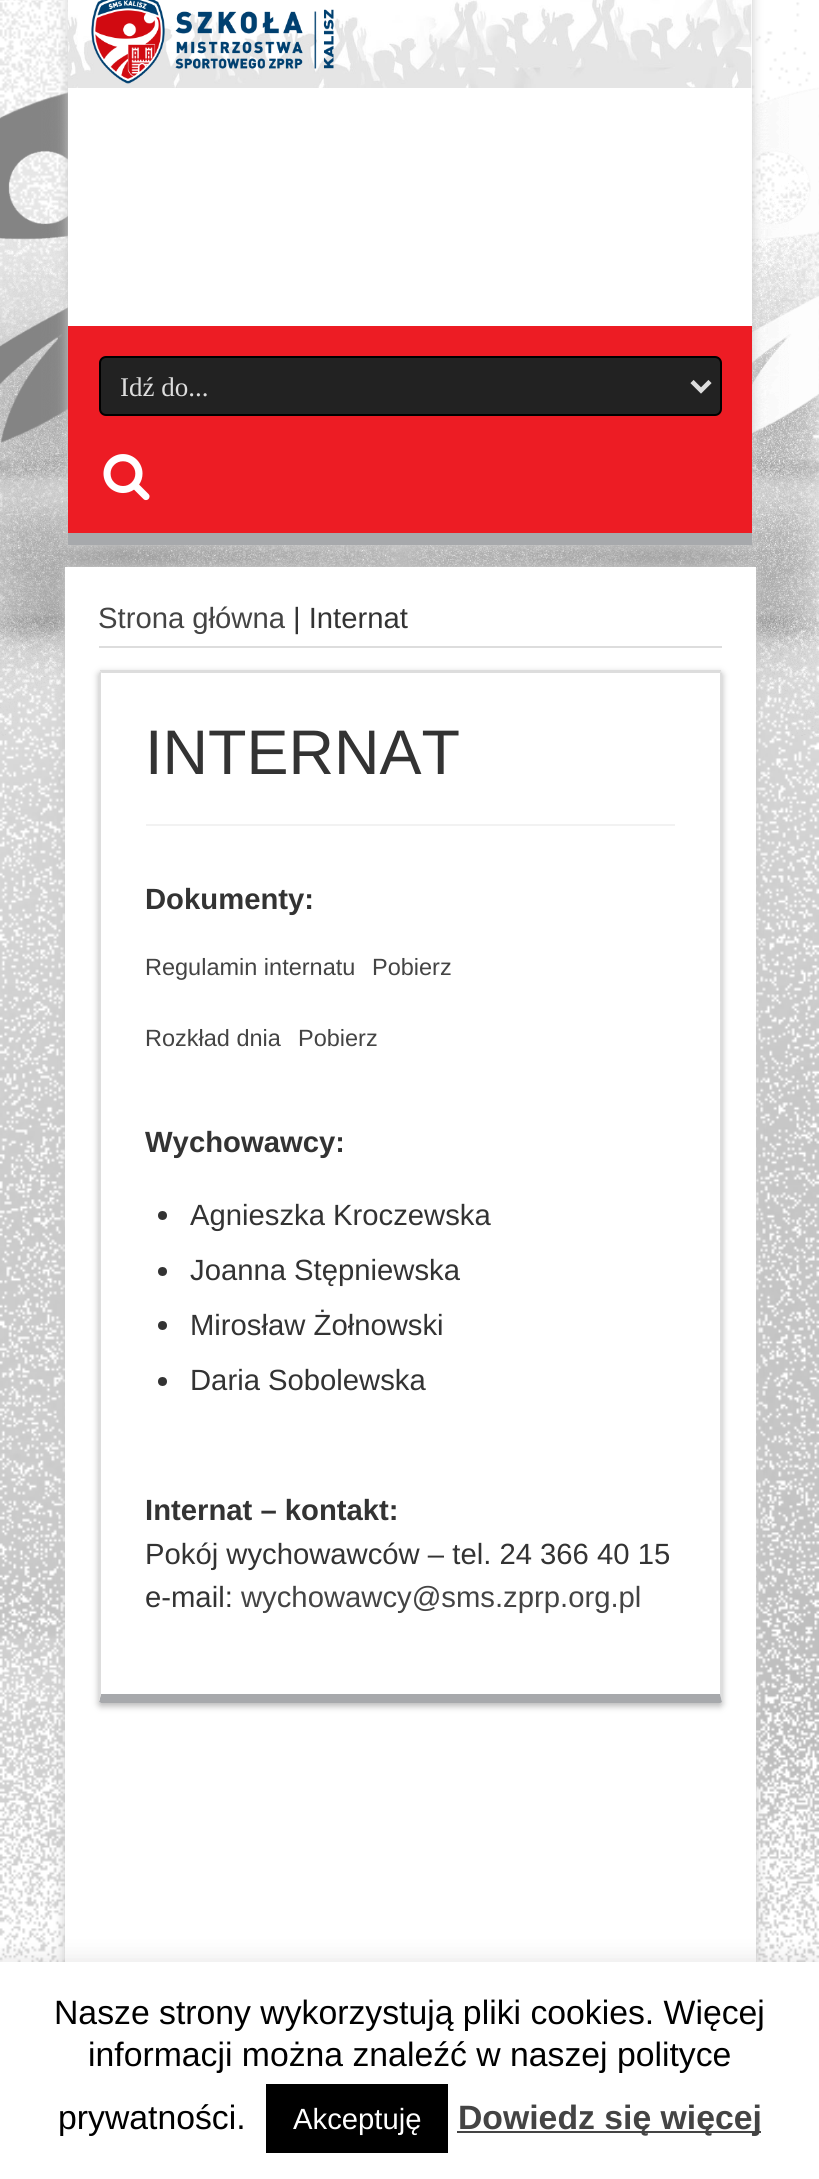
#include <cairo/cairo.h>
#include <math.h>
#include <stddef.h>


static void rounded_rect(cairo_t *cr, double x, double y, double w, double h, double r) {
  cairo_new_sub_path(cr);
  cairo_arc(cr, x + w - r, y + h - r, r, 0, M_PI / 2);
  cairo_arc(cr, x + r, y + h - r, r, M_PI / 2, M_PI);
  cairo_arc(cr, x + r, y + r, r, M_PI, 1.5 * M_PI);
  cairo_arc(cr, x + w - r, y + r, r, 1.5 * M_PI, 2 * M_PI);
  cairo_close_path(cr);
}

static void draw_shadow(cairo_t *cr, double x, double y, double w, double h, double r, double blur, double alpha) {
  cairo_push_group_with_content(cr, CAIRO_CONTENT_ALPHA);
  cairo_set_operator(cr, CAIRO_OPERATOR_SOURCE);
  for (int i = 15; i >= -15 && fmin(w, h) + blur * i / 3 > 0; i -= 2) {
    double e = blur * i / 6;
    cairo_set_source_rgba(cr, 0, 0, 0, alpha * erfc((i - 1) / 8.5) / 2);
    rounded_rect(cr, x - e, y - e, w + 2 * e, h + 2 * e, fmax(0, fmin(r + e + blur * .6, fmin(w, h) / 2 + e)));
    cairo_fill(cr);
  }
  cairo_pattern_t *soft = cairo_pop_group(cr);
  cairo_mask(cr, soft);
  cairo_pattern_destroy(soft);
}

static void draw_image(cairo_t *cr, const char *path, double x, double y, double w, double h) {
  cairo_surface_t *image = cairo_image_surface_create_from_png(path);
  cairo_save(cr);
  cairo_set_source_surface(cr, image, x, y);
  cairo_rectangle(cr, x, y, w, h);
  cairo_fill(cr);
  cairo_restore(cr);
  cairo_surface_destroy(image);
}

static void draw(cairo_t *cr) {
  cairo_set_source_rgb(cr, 1, 1, 1);
  cairo_paint(cr);
  draw_image(cr, "images/1.png", 0, 0, 819, 1962);
  draw_image(cr, "images/2.png", 0, 87, 819, 649);
  cairo_set_source_rgb(cr, 202 / 255.0, 202 / 255.0, 202 / 255.0);
  draw_shadow(cr, 68, -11, 684, 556, 0, 5.5, 1);
  cairo_set_source_rgb(cr, 1, 1, 1);
  cairo_rectangle(cr, 68, 0, 684, 326);
  cairo_fill(cr);
  draw_image(cr, "images/3.png", 67, 0, 685, 88);
  draw_image(cr, "images/4.png", 91, 0, 243, 84);
  cairo_set_source_rgb(cr, 237 / 255.0, 28 / 255.0, 36 / 255.0);
  cairo_rectangle(cr, 68, 326, 684, 207);
  cairo_fill(cr);
  cairo_set_source_rgb(cr, 167 / 255.0, 169 / 255.0, 172 / 255.0);
  cairo_rectangle(cr, 68, 533, 684, 12);
  cairo_fill(cr);
  cairo_set_source_rgb(cr, 34 / 255.0, 34 / 255.0, 34 / 255.0);
  rounded_rect(cr, 100, 357, 621, 58, 6);
  cairo_fill_preserve(cr);
  cairo_set_source_rgb(cr, 0, 0, 0);
  cairo_stroke(cr);
  cairo_new_path(cr);
  cairo_move_to(cr, 692, 381.5);
  cairo_line_to(cr, 701, 390.5);
  cairo_line_to(cr, 710, 381.5);
  cairo_set_source_rgb(cr, 221 / 255.0, 221 / 255.0, 221 / 255.0);
  cairo_set_line_width(cr, 4.5);
  cairo_stroke(cr);
  draw_image(cr, "images/5.png", 103, 454, 47, 47);
  cairo_set_source_rgb(cr, 202 / 255.0, 202 / 255.0, 202 / 255.0);
  draw_shadow(cr, 65, 567, 691, 1474, 0, 5.5, 1);
  cairo_set_source_rgb(cr, 1, 1, 1);
  cairo_rectangle(cr, 65, 567, 691, 1395);
  cairo_fill(cr);
  cairo_set_source_rgb(cr, 221 / 255.0, 221 / 255.0, 221 / 255.0);
  cairo_rectangle(cr, 99, 646, 623, 2);
  cairo_fill(cr);
  cairo_save(cr);
  cairo_set_fill_rule(cr, CAIRO_FILL_RULE_EVEN_ODD);
  cairo_new_path(cr);
  cairo_move_to(cr, 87, 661);
  cairo_line_to(cr, 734, 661);
  cairo_line_to(cr, 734, 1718);
  cairo_line_to(cr, 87, 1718);
  cairo_close_path(cr);
  cairo_move_to(cr, 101, 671);
  cairo_line_to(cr, 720, 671);
  cairo_curve_to(cr, 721, 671, 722, 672, 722, 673);
  cairo_line_to(cr, 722, 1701);
  cairo_curve_to(cr, 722, 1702, 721, 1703, 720, 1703);
  cairo_line_to(cr, 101, 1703);
  cairo_curve_to(cr, 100, 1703, 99, 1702, 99, 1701);
  cairo_line_to(cr, 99, 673);
  cairo_curve_to(cr, 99, 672, 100, 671, 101, 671);
  cairo_close_path(cr);
  cairo_clip(cr);
  cairo_set_source_rgb(cr, 181 / 255.0, 181 / 255.0, 181 / 255.0);
  draw_shadow(cr, 99, 673, 623, 1033, 2, 3.5, 1);
  cairo_restore(cr);
  cairo_new_path(cr);
  cairo_move_to(cr, 100, 671);
  cairo_line_to(cr, 100, 670);
  cairo_line_to(cr, 721, 670);
  cairo_line_to(cr, 721, 671);
  cairo_line_to(cr, 720, 673);
  cairo_line_to(cr, 102, 673);
  cairo_close_path(cr);
  cairo_fill(cr);
  cairo_new_path(cr);
  cairo_move_to(cr, 721, 671);
  cairo_line_to(cr, 722, 673);
  cairo_line_to(cr, 722, 1702);
  cairo_line_to(cr, 720, 1694);
  cairo_line_to(cr, 720, 673);
  cairo_close_path(cr);
  cairo_fill(cr);
  cairo_set_source_rgb(cr, 167 / 255.0, 169 / 255.0, 172 / 255.0);
  cairo_new_path(cr);
  cairo_move_to(cr, 722, 1702);
  cairo_curve_to(cr, 722, 1702, 721, 1703, 720, 1703);
  cairo_line_to(cr, 101, 1703);
  cairo_line_to(cr, 99, 1702);
  cairo_line_to(cr, 101, 1694);
  cairo_line_to(cr, 720, 1694);
  cairo_close_path(cr);
  cairo_fill(cr);
  cairo_set_source_rgb(cr, 221 / 255.0, 221 / 255.0, 221 / 255.0);
  cairo_new_path(cr);
  cairo_move_to(cr, 101, 673);
  cairo_line_to(cr, 102, 673);
  cairo_line_to(cr, 100, 671);
  cairo_line_to(cr, 99, 673);
  cairo_line_to(cr, 99, 1702);
  cairo_line_to(cr, 101, 1694);
  cairo_close_path(cr);
  cairo_fill(cr);
  cairo_set_source_rgb(cr, 242 / 255.0, 242 / 255.0, 242 / 255.0);
  cairo_rectangle(cr, 146, 824, 529, 2);
  cairo_fill(cr);
  cairo_set_source_rgb(cr, 51 / 255.0, 51 / 255.0, 51 / 255.0);
  cairo_arc(cr, 162.5, 1215.5, 4.5, 0, 2 * M_PI);
  cairo_fill(cr);
  cairo_arc(cr, 162.5, 1271.5, 4.5, 0, 2 * M_PI);
  cairo_fill(cr);
  cairo_arc(cr, 162.5, 1325.5, 4.5, 0, 2 * M_PI);
  cairo_fill(cr);
  cairo_arc(cr, 162.5, 1381.5, 4.5, 0, 2 * M_PI);
  cairo_fill(cr);
  cairo_set_source_rgb(cr, 172 / 255.0, 171 / 255.0, 171 / 255.0);
  draw_shadow(cr, 0, 1960, 819, 218, 0, 11, 0.3);
  cairo_set_source_rgb(cr, 1, 1, 1);
  cairo_rectangle(cr, 0, 1962, 819, 217);
  cairo_fill(cr);
  cairo_set_source_rgb(cr, 0, 0, 0);
  cairo_rectangle(cr, 266, 2084, 182, 69);
  cairo_fill(cr);
  cairo_set_source_rgb(cr, 68 / 255.0, 68 / 255.0, 68 / 255.0);
  cairo_rectangle(cr, 457, 2131, 304, 2);
  cairo_fill(cr);
  cairo_select_font_face(cr, "Liberation Serif", CAIRO_FONT_SLANT_NORMAL, CAIRO_FONT_WEIGHT_NORMAL);
  cairo_set_font_size(cr, 27);
  cairo_set_source_rgb(cr, 221 / 255.0, 221 / 255.0, 221 / 255.0);
  cairo_move_to(cr, 120, 396);
  cairo_show_text(cr, "Idź do...");
  cairo_select_font_face(cr, "Liberation Sans", CAIRO_FONT_SLANT_NORMAL, CAIRO_FONT_WEIGHT_NORMAL);
  cairo_set_font_size(cr, 29.25);
  cairo_set_source_rgb(cr, 68 / 255.0, 68 / 255.0, 68 / 255.0);
  cairo_move_to(cr, 98, 628);
  cairo_show_text(cr, "Strona główna");
  cairo_set_source_rgb(cr, 51 / 255.0, 51 / 255.0, 51 / 255.0);
  cairo_move_to(cr, 293, 628);
  cairo_show_text(cr, "| Internat");
  cairo_set_font_size(cr, 63);
  cairo_move_to(cr, 145, 774);
  cairo_show_text(cr, "INTERNAT");
  cairo_select_font_face(cr, "Liberation Sans", CAIRO_FONT_SLANT_NORMAL, CAIRO_FONT_WEIGHT_BOLD);
  cairo_set_font_size(cr, 29.25);
  cairo_move_to(cr, 145, 909);
  cairo_show_text(cr, "Dokumenty:");
  cairo_select_font_face(cr, "Liberation Sans", CAIRO_FONT_SLANT_NORMAL, CAIRO_FONT_WEIGHT_NORMAL);
  cairo_set_font_size(cr, 23.5);
  cairo_set_source_rgb(cr, 68 / 255.0, 68 / 255.0, 68 / 255.0);
  cairo_move_to(cr, 145, 975);
  cairo_show_text(cr, "Regulamin internatu");
  cairo_move_to(cr, 372, 975);
  cairo_show_text(cr, "Pobierz");
  cairo_move_to(cr, 145, 1046);
  cairo_show_text(cr, "Rozkład dnia");
  cairo_move_to(cr, 298, 1046);
  cairo_show_text(cr, "Pobierz");
  cairo_select_font_face(cr, "Liberation Sans", CAIRO_FONT_SLANT_NORMAL, CAIRO_FONT_WEIGHT_BOLD);
  cairo_set_font_size(cr, 29.25);
  cairo_set_source_rgb(cr, 51 / 255.0, 51 / 255.0, 51 / 255.0);
  cairo_move_to(cr, 145, 1152);
  cairo_show_text(cr, "Wychowawcy:");
  cairo_select_font_face(cr, "Liberation Sans", CAIRO_FONT_SLANT_NORMAL, CAIRO_FONT_WEIGHT_NORMAL);
  cairo_move_to(cr, 190, 1225);
  cairo_show_text(cr, "Agnieszka Kroczewska");
  cairo_move_to(cr, 190, 1280);
  cairo_show_text(cr, "Joanna Stępniewska");
  cairo_move_to(cr, 190, 1335);
  cairo_show_text(cr, "Mirosław Żołnowski");
  cairo_move_to(cr, 190, 1390);
  cairo_show_text(cr, "Daria Sobolewska");
  cairo_select_font_face(cr, "Liberation Sans", CAIRO_FONT_SLANT_NORMAL, CAIRO_FONT_WEIGHT_BOLD);
  cairo_move_to(cr, 145, 1520);
  cairo_show_text(cr, "Internat – kontakt:");
  cairo_select_font_face(cr, "Liberation Sans", CAIRO_FONT_SLANT_NORMAL, CAIRO_FONT_WEIGHT_NORMAL);
  cairo_move_to(cr, 145, 1564);
  cairo_show_text(cr, "Pokój wychowawców – tel. 24 366 40 15");
  cairo_move_to(cr, 145, 1607);
  cairo_show_text(cr, "e-mail:");
  cairo_set_source_rgb(cr, 68 / 255.0, 68 / 255.0, 68 / 255.0);
  cairo_move_to(cr, 241, 1607);
  cairo_show_text(cr, "wychowawcy@sms.zprp.org.pl");
  cairo_set_font_size(cr, 33.75);
  cairo_set_source_rgb(cr, 0, 0, 0);
  cairo_move_to(cr, 54, 2024);
  cairo_show_text(cr, "Nasze strony wykorzystują pliki cookies. Więcej");
  cairo_move_to(cr, 88, 2066);
  cairo_show_text(cr, "informacji można znaleźć w naszej polityce");
  cairo_move_to(cr, 58, 2129);
  cairo_show_text(cr, "prywatności.");
  cairo_set_font_size(cr, 29.25);
  cairo_set_source_rgb(cr, 1, 1, 1);
  cairo_move_to(cr, 293, 2129);
  cairo_show_text(cr, "Akceptuję");
  cairo_select_font_face(cr, "Liberation Sans", CAIRO_FONT_SLANT_NORMAL, CAIRO_FONT_WEIGHT_BOLD);
  cairo_set_font_size(cr, 33.75);
  cairo_set_source_rgb(cr, 68 / 255.0, 68 / 255.0, 68 / 255.0);
  cairo_move_to(cr, 458, 2129);
  cairo_show_text(cr, "Dowiedz się więcej");
}

int main(void) {
  cairo_surface_t *surface = cairo_image_surface_create(CAIRO_FORMAT_RGB24, 819, 2179);
  cairo_t *cr = cairo_create(surface);
  cairo_font_options_t *options = cairo_font_options_create();
  cairo_font_options_set_hint_metrics(options, CAIRO_HINT_METRICS_OFF);
  cairo_font_options_set_hint_style(options, CAIRO_HINT_STYLE_NONE);
  cairo_set_font_options(cr, options);
  cairo_set_miter_limit(cr, 4);
  draw(cr);
  cairo_surface_write_to_png(surface, "out.png");
  cairo_font_options_destroy(options);
  cairo_destroy(cr);
  cairo_surface_destroy(surface);
  return 0;
}
